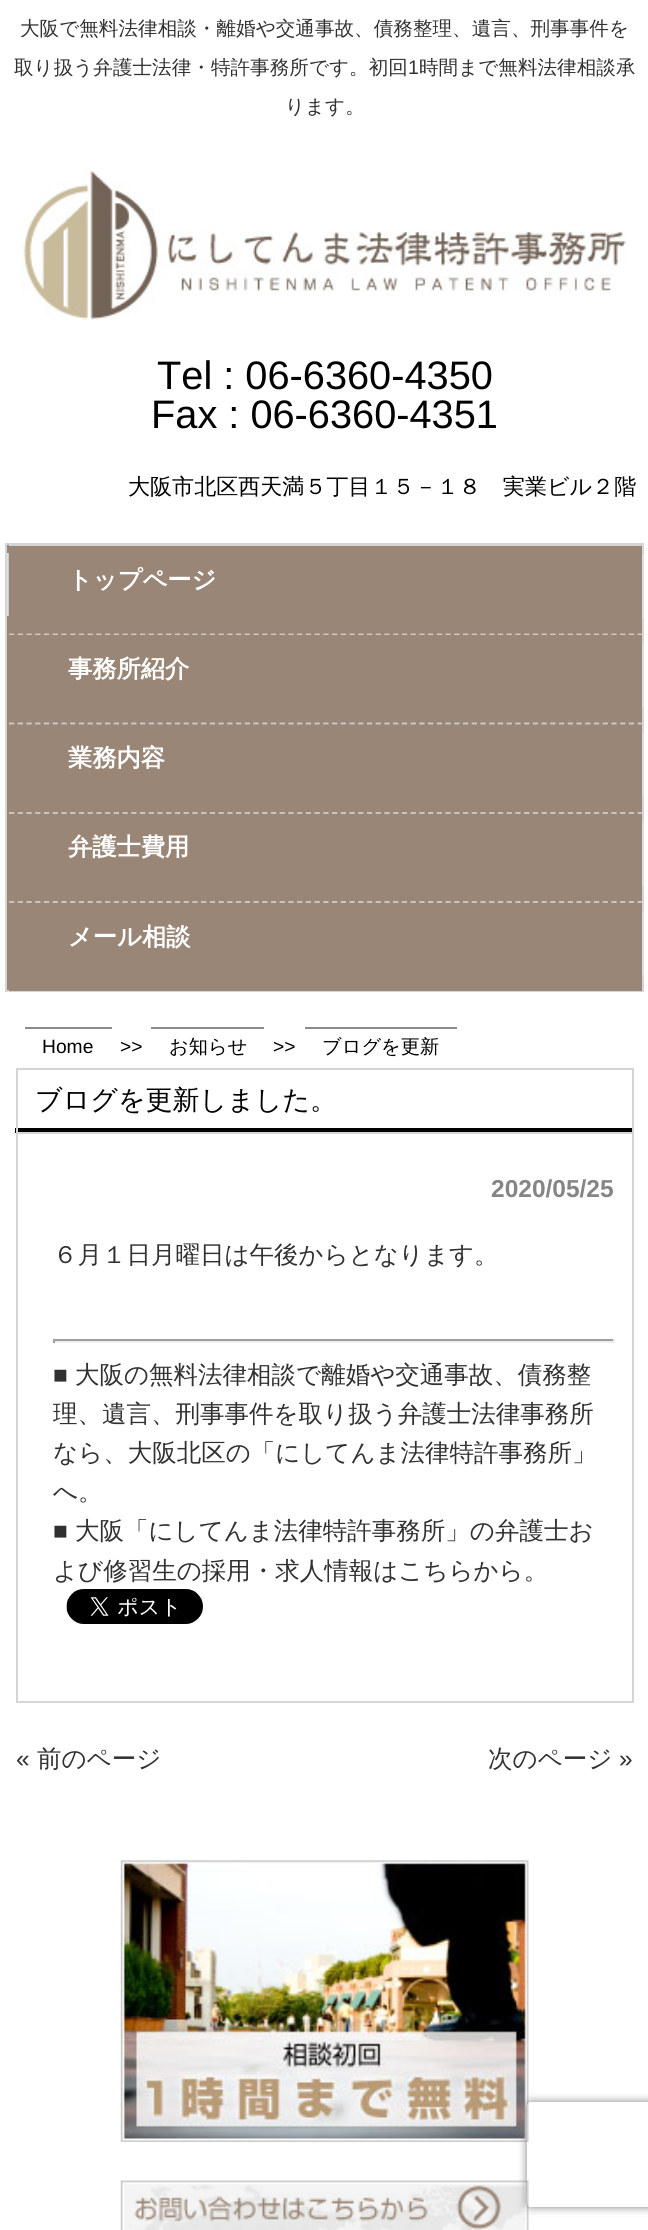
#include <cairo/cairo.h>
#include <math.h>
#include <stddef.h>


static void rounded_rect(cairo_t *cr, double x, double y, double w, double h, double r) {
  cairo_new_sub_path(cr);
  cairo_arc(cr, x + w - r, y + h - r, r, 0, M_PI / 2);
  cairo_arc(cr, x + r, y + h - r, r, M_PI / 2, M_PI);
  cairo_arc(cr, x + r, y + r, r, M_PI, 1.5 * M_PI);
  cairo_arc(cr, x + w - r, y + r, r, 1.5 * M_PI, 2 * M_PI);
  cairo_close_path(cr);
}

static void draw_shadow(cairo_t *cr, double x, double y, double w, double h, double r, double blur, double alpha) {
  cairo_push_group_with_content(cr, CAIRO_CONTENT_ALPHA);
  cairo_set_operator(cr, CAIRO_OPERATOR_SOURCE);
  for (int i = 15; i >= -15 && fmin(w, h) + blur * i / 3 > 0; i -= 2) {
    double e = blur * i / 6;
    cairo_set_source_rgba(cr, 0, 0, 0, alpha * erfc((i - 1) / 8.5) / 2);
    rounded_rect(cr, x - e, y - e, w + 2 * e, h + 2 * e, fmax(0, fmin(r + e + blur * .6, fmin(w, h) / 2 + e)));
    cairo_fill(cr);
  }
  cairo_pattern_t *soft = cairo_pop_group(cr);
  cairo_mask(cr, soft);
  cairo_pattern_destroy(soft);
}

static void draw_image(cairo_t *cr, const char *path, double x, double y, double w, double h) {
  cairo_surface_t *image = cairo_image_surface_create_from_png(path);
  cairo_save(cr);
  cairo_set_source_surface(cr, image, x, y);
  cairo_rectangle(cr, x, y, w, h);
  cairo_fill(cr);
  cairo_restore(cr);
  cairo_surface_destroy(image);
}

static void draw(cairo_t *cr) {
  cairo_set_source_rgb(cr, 1, 1, 1);
  cairo_paint(cr);
  draw_image(cr, "images/1.png", 21, 170, 605, 150);
  cairo_set_source_rgb(cr, 153 / 255.0, 134 / 255.0, 119 / 255.0);
  cairo_rectangle(cr, 6, 544, 637, 447);
  cairo_fill_preserve(cr);
  cairo_set_source_rgb(cr, 213 / 255.0, 213 / 255.0, 213 / 255.0);
  cairo_stroke(cr);
  draw_image(cr, "images/2.png", 7, 553, 2, 63);
  draw_image(cr, "images/3.png", 642, 555, 2, 63);
  cairo_rectangle(cr, 9, 545, 635, 1);
  cairo_fill(cr);
  cairo_new_path(cr);
  cairo_move_to(cr, 9, 634.5);
  cairo_line_to(cr, 642, 634.5);
  cairo_set_source_rgb(cr, 204 / 255.0, 204 / 255.0, 204 / 255.0);
  cairo_set_line_width(cr, 1.8);
  cairo_set_dash(cr, (double[]){5.25, 3.48}, 2, 0);
  cairo_stroke(cr);
  draw_image(cr, "images/4.png", 642, 644, 2, 63);
  cairo_set_source_rgb(cr, 153 / 255.0, 134 / 255.0, 119 / 255.0);
  cairo_rectangle(cr, 9, 635, 633, 1);
  cairo_fill(cr);
  cairo_new_path(cr);
  cairo_move_to(cr, 9, 723.5);
  cairo_line_to(cr, 642, 723.5);
  cairo_set_source_rgb(cr, 204 / 255.0, 204 / 255.0, 204 / 255.0);
  cairo_stroke(cr);
  draw_image(cr, "images/5.png", 642, 733, 2, 63);
  cairo_new_path(cr);
  cairo_move_to(cr, 9, 813);
  cairo_line_to(cr, 642, 813);
  cairo_stroke(cr);
  draw_image(cr, "images/6.png", 642, 822, 2, 64);
  cairo_new_path(cr);
  cairo_move_to(cr, 9, 902);
  cairo_line_to(cr, 642, 902);
  cairo_stroke(cr);
  draw_image(cr, "images/3.png", 642, 912, 2, 63);
  cairo_set_source_rgb(cr, 153 / 255.0, 134 / 255.0, 119 / 255.0);
  cairo_rectangle(cr, 9, 990, 633, 1);
  cairo_fill(cr);
  cairo_set_source_rgb(cr, 139 / 255.0, 139 / 255.0, 139 / 255.0);
  cairo_rectangle(cr, 25, 1027, 87, 2);
  cairo_fill(cr);
  cairo_rectangle(cr, 151, 1027, 113, 2);
  cairo_fill(cr);
  cairo_rectangle(cr, 305, 1027, 152, 2);
  cairo_fill(cr);
  cairo_set_source_rgb(cr, 0, 0, 0);
  cairo_rectangle(cr, 15, 1128, 619, 5);
  cairo_fill(cr);
  cairo_set_source_rgb(cr, 213 / 255.0, 213 / 255.0, 213 / 255.0);
  cairo_rectangle(cr, 16, 1068, 618, 2);
  cairo_fill(cr);
  cairo_rectangle(cr, 632, 1068, 2, 64);
  cairo_fill(cr);
  cairo_rectangle(cr, 16, 1068, 2, 64);
  cairo_fill(cr);
  cairo_rectangle(cr, 17, 1133, 616, 569);
  cairo_set_line_width(cr, 2);
  cairo_set_dash(cr, NULL, 0, 0);
  cairo_stroke(cr);
  cairo_set_source_rgb(cr, 159 / 255.0, 159 / 255.0, 159 / 255.0);
  cairo_rectangle(cr, 53, 1339, 561, 2);
  cairo_fill(cr);
  cairo_set_source_rgb(cr, 238 / 255.0, 238 / 255.0, 238 / 255.0);
  cairo_rectangle(cr, 613, 1339, 2, 4);
  cairo_fill(cr);
  cairo_rectangle(cr, 53, 1341, 561, 2);
  cairo_fill(cr);
  cairo_set_source_rgb(cr, 159 / 255.0, 159 / 255.0, 159 / 255.0);
  cairo_rectangle(cr, 53, 1339, 2, 4);
  cairo_fill(cr);
  draw_image(cr, "images/7.png", 66, 1603, 2, 11);
  draw_image(cr, "images/8.png", 66, 1589, 137, 35);
  draw_image(cr, "images/9.png", 120, 1860, 409, 282);
  draw_image(cr, "images/10.png", 120, 2180, 409, 50);
  cairo_save(cr);
  cairo_set_fill_rule(cr, CAIRO_FILL_RULE_EVEN_ODD);
  cairo_new_path(cr);
  cairo_move_to(cr, 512, 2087);
  cairo_line_to(cr, 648, 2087);
  cairo_line_to(cr, 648, 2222);
  cairo_line_to(cr, 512, 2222);
  cairo_close_path(cr);
  cairo_move_to(cr, 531, 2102);
  cairo_line_to(cr, 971, 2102);
  cairo_curve_to(cr, 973, 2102, 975, 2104, 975, 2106);
  cairo_line_to(cr, 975, 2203);
  cairo_curve_to(cr, 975, 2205, 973, 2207, 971, 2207);
  cairo_line_to(cr, 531, 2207);
  cairo_curve_to(cr, 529, 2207, 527, 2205, 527, 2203);
  cairo_line_to(cr, 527, 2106);
  cairo_curve_to(cr, 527, 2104, 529, 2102, 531, 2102);
  cairo_close_path(cr);
  cairo_clip(cr);
  cairo_set_source_rgb(cr, 128 / 255.0, 128 / 255.0, 128 / 255.0);
  draw_shadow(cr, 527, 2102, 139, 105, 4, 4.5, 1);
  cairo_restore(cr);
  cairo_select_font_face(cr, "WenQuanYi Zen Hei Medium", CAIRO_FONT_SLANT_NORMAL, CAIRO_FONT_WEIGHT_NORMAL);
  cairo_set_font_size(cr, 19.6);
  cairo_set_source_rgb(cr, 49 / 255.0, 49 / 255.0, 49 / 255.0);
  cairo_move_to(cr, 20, 35);
  cairo_show_text(cr, "大阪で無料法律相談・離婚や交通事故、債務整理、遺言、刑事事件を");
  cairo_move_to(cr, 14, 74);
  cairo_show_text(cr, "取り扱う弁護士法律・特許事務所です。初回");
  cairo_select_font_face(cr, "Liberation Sans", CAIRO_FONT_SLANT_NORMAL, CAIRO_FONT_WEIGHT_NORMAL);
  cairo_move_to(cr, 408, 74);
  cairo_show_text(cr, "1");
  cairo_select_font_face(cr, "WenQuanYi Zen Hei Medium", CAIRO_FONT_SLANT_NORMAL, CAIRO_FONT_WEIGHT_NORMAL);
  cairo_move_to(cr, 419, 74);
  cairo_show_text(cr, "時間まで無料法律相談承");
  cairo_move_to(cr, 285, 113);
  cairo_show_text(cr, "ります。");
  cairo_select_font_face(cr, "Liberation Sans", CAIRO_FONT_SLANT_NORMAL, CAIRO_FONT_WEIGHT_NORMAL);
  cairo_set_font_size(cr, 39.75);
  cairo_set_source_rgb(cr, 0, 0, 0);
  cairo_move_to(cr, 157, 389);
  cairo_show_text(cr, "Tel : 06-6360-4350");
  cairo_move_to(cr, 151, 428);
  cairo_show_text(cr, "Fax : 06-6360-4351");
  cairo_select_font_face(cr, "WenQuanYi Zen Hei Medium", CAIRO_FONT_SLANT_NORMAL, CAIRO_FONT_WEIGHT_NORMAL);
  cairo_set_font_size(cr, 22.05);
  cairo_move_to(cr, 128, 494);
  cairo_show_text(cr, "大阪市北区西天満５丁目１５－１８　実業ビル２階");
  cairo_select_font_face(cr, "WenQuanYi Zen Hei", CAIRO_FONT_SLANT_NORMAL, CAIRO_FONT_WEIGHT_BOLD);
  cairo_set_font_size(cr, 24.25);
  cairo_set_source_rgb(cr, 1, 1, 1);
  cairo_move_to(cr, 68, 588);
  cairo_show_text(cr, "トップページ");
  cairo_move_to(cr, 68, 677);
  cairo_show_text(cr, "事務所紹介");
  cairo_move_to(cr, 68, 766);
  cairo_show_text(cr, "業務内容");
  cairo_move_to(cr, 68, 855);
  cairo_show_text(cr, "弁護士費用");
  cairo_move_to(cr, 68, 945);
  cairo_show_text(cr, "メール相談");
  cairo_select_font_face(cr, "Liberation Sans", CAIRO_FONT_SLANT_NORMAL, CAIRO_FONT_WEIGHT_NORMAL);
  cairo_set_font_size(cr, 19.25);
  cairo_set_source_rgb(cr, 0, 0, 0);
  cairo_move_to(cr, 42, 1053);
  cairo_show_text(cr, "Home");
  cairo_move_to(cr, 120, 1053);
  cairo_show_text(cr, ">>");
  cairo_select_font_face(cr, "WenQuanYi Zen Hei Medium", CAIRO_FONT_SLANT_NORMAL, CAIRO_FONT_WEIGHT_NORMAL);
  cairo_move_to(cr, 169, 1053);
  cairo_show_text(cr, "お知らせ");
  cairo_select_font_face(cr, "Liberation Sans", CAIRO_FONT_SLANT_NORMAL, CAIRO_FONT_WEIGHT_NORMAL);
  cairo_move_to(cr, 273, 1053);
  cairo_show_text(cr, ">>");
  cairo_select_font_face(cr, "WenQuanYi Zen Hei Medium", CAIRO_FONT_SLANT_NORMAL, CAIRO_FONT_WEIGHT_NORMAL);
  cairo_move_to(cr, 322, 1053);
  cairo_show_text(cr, "ブログを更新");
  cairo_set_font_size(cr, 27);
  cairo_move_to(cr, 35, 1109);
  cairo_show_text(cr, "ブログを更新しました。");
  cairo_select_font_face(cr, "Liberation Sans", CAIRO_FONT_SLANT_NORMAL, CAIRO_FONT_WEIGHT_BOLD);
  cairo_set_font_size(cr, 24.5);
  cairo_set_source_rgb(cr, 133 / 255.0, 133 / 255.0, 133 / 255.0);
  cairo_move_to(cr, 491, 1197);
  cairo_show_text(cr, "2020/05/25");
  cairo_select_font_face(cr, "WenQuanYi Zen Hei Medium", CAIRO_FONT_SLANT_NORMAL, CAIRO_FONT_WEIGHT_NORMAL);
  cairo_set_source_rgb(cr, 49 / 255.0, 49 / 255.0, 49 / 255.0);
  cairo_move_to(cr, 53, 1263);
  cairo_show_text(cr, "６月１日月曜日は午後からとなります。");
  cairo_select_font_face(cr, "Liberation Sans", CAIRO_FONT_SLANT_NORMAL, CAIRO_FONT_WEIGHT_NORMAL);
  cairo_move_to(cr, 53, 1383);
  cairo_show_text(cr, "■");
  cairo_select_font_face(cr, "WenQuanYi Zen Hei Medium", CAIRO_FONT_SLANT_NORMAL, CAIRO_FONT_WEIGHT_NORMAL);
  cairo_move_to(cr, 75, 1383);
  cairo_show_text(cr, "大阪の無料法律相談で離婚や交通事故、債務整");
  cairo_move_to(cr, 53, 1422);
  cairo_show_text(cr, "理、遺言、刑事事件を取り扱う弁護士法律事務所");
  cairo_move_to(cr, 53, 1461);
  cairo_show_text(cr, "なら、大阪北区の「にしてんま法律特許事務所」");
  cairo_move_to(cr, 53, 1500);
  cairo_show_text(cr, "へ。");
  cairo_select_font_face(cr, "Liberation Sans", CAIRO_FONT_SLANT_NORMAL, CAIRO_FONT_WEIGHT_NORMAL);
  cairo_move_to(cr, 53, 1539);
  cairo_show_text(cr, "■");
  cairo_select_font_face(cr, "WenQuanYi Zen Hei Medium", CAIRO_FONT_SLANT_NORMAL, CAIRO_FONT_WEIGHT_NORMAL);
  cairo_move_to(cr, 75, 1539);
  cairo_show_text(cr, "大阪「にしてんま法律特許事務所」の弁護士お");
  cairo_move_to(cr, 53, 1579);
  cairo_show_text(cr, "よび修習生の採用・求人情報はこちらから。");
  cairo_select_font_face(cr, "Liberation Sans", CAIRO_FONT_SLANT_NORMAL, CAIRO_FONT_WEIGHT_NORMAL);
  cairo_move_to(cr, 16, 1767);
  cairo_show_text(cr, "«");
  cairo_select_font_face(cr, "WenQuanYi Zen Hei Medium", CAIRO_FONT_SLANT_NORMAL, CAIRO_FONT_WEIGHT_NORMAL);
  cairo_move_to(cr, 37, 1767);
  cairo_show_text(cr, "前のページ");
  cairo_move_to(cr, 488, 1767);
  cairo_show_text(cr, "次のページ");
  cairo_select_font_face(cr, "Liberation Sans", CAIRO_FONT_SLANT_NORMAL, CAIRO_FONT_WEIGHT_NORMAL);
  cairo_move_to(cr, 619, 1767);
  cairo_show_text(cr, "»");
}

int main(void) {
  cairo_surface_t *surface = cairo_image_surface_create(CAIRO_FORMAT_RGB24, 648, 2230);
  cairo_t *cr = cairo_create(surface);
  cairo_font_options_t *options = cairo_font_options_create();
  cairo_font_options_set_hint_metrics(options, CAIRO_HINT_METRICS_OFF);
  cairo_font_options_set_hint_style(options, CAIRO_HINT_STYLE_NONE);
  cairo_set_font_options(cr, options);
  cairo_set_miter_limit(cr, 4);
  draw(cr);
  cairo_surface_write_to_png(surface, "out.png");
  cairo_font_options_destroy(options);
  cairo_destroy(cr);
  cairo_surface_destroy(surface);
  return 0;
}
